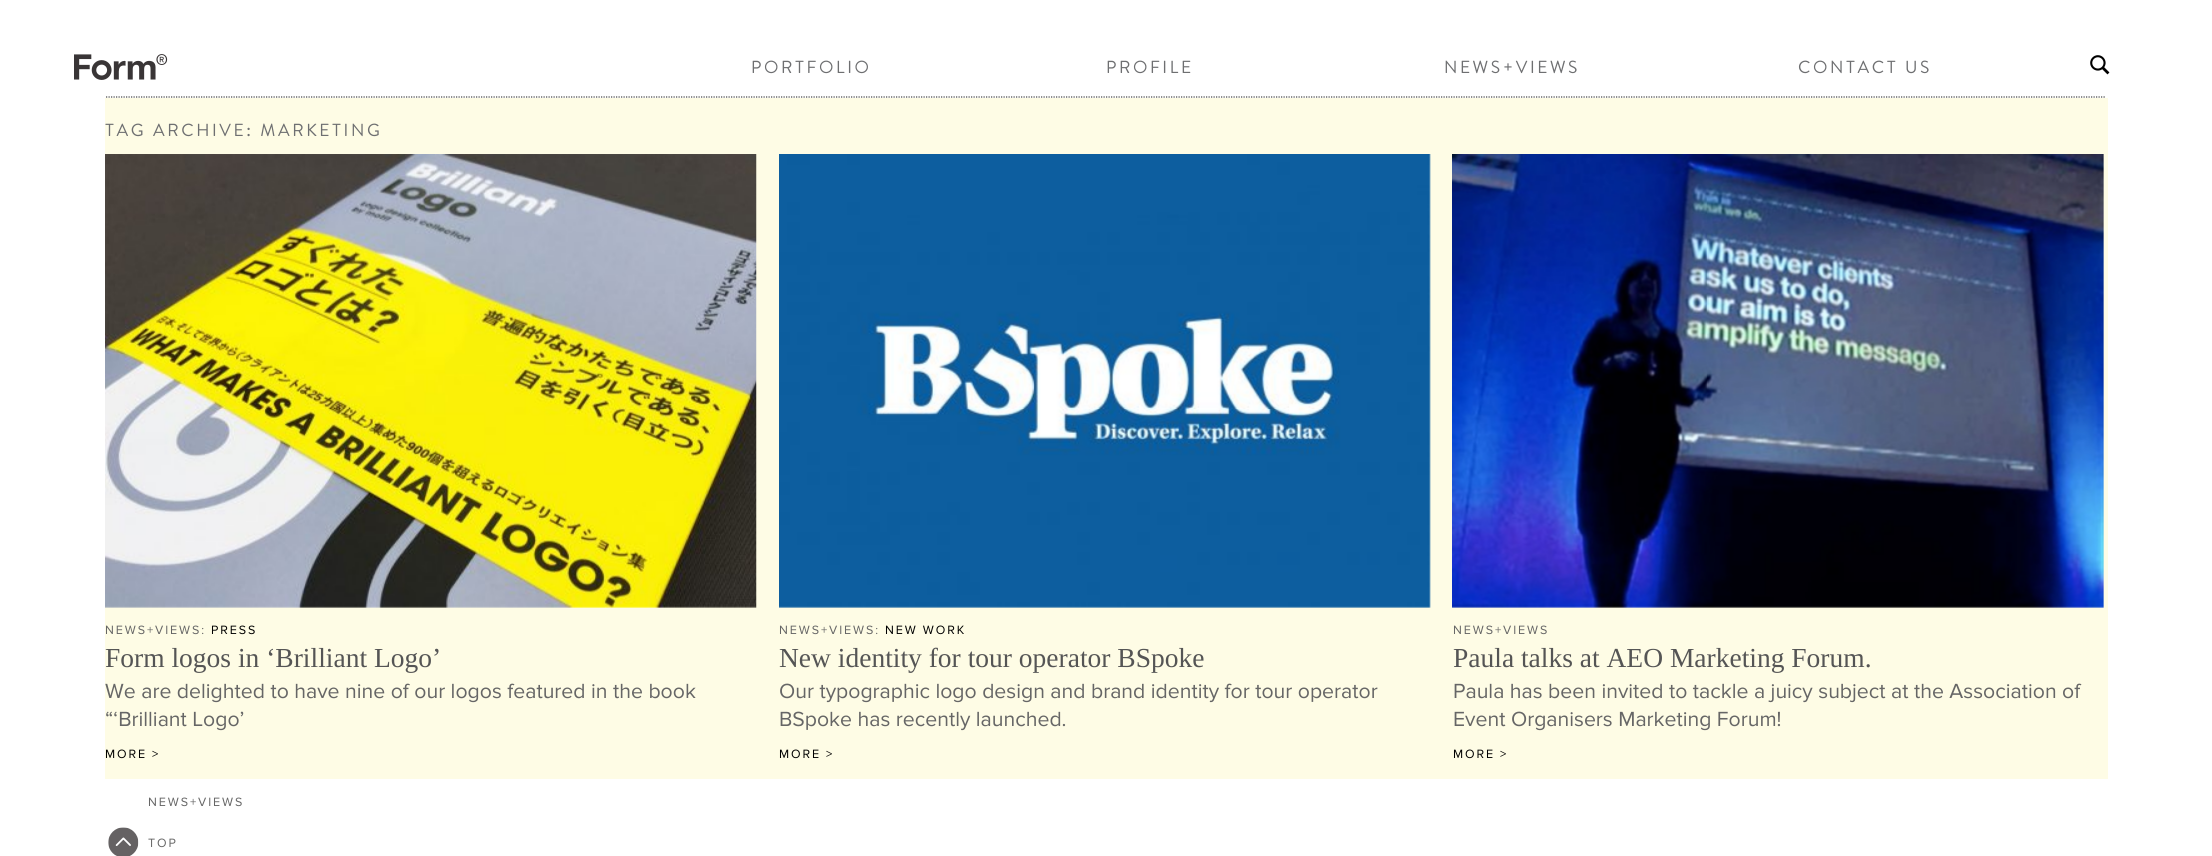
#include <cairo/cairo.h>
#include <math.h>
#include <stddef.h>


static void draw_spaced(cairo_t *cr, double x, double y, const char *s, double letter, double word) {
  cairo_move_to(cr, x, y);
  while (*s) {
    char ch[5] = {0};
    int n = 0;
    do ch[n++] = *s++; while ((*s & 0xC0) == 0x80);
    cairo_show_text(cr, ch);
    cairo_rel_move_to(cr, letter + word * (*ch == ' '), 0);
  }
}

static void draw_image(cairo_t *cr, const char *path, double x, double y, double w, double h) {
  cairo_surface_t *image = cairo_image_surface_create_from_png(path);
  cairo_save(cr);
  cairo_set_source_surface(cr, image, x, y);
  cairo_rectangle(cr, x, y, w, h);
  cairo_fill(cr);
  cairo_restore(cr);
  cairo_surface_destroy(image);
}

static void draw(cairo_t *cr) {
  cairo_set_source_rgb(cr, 1, 1, 1);
  cairo_paint(cr);
  draw_image(cr, "images/1.png", 74, 54, 94, 26);
  draw_image(cr, "images/2.png", 2090, 55, 20, 20);
  cairo_new_path(cr);
  cairo_move_to(cr, 106, 97);
  cairo_line_to(cr, 2106, 97);
  cairo_set_source_rgb(cr, 68 / 255.0, 68 / 255.0, 68 / 255.0);
  cairo_set_line_width(cr, 1.2);
  cairo_set_dash(cr, (double[]){1.25, 1.25}, 2, 0);
  cairo_stroke(cr);
  cairo_set_source_rgb(cr, 254 / 255.0, 252 / 255.0, 229 / 255.0);
  cairo_rectangle(cr, 105, 98, 2003, 681);
  cairo_fill(cr);
  draw_image(cr, "images/3.png", 105, 154, 652, 454);
  draw_image(cr, "images/4.png", 779, 154, 652, 454);
  draw_image(cr, "images/5.png", 1452, 154, 652, 454);
  draw_image(cr, "images/6.png", 108, 827, 31, 29);
  cairo_select_font_face(cr, "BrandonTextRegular", CAIRO_FONT_SLANT_NORMAL, CAIRO_FONT_WEIGHT_NORMAL);
  cairo_set_font_size(cr, 17.5);
  cairo_set_source_rgb(cr, 110 / 255.0, 111 / 255.0, 113 / 255.0);
  draw_spaced(cr, 751, 73, "PORTFOLIO", 2.6, 0);
  draw_spaced(cr, 1106, 73, "PROFILE", 2.6, 0);
  draw_spaced(cr, 1444, 73, "NEWS+VIEWS", 2.6, 0);
  draw_spaced(cr, 1798, 73, "CONTACT US", 2.6, 0);
  draw_spaced(cr, 105, 136, "TAG ARCHIVE: MARKETING", 2.6, 0);
  cairo_select_font_face(cr, "Proxima Nova", CAIRO_FONT_SLANT_NORMAL, CAIRO_FONT_WEIGHT_NORMAL);
  cairo_set_font_size(cr, 12.5);
  cairo_set_source_rgb(cr, 102 / 255.0, 102 / 255.0, 102 / 255.0);
  draw_spaced(cr, 105, 634, "NEWS+VIEWS:", 1.9, 0);
  cairo_set_source_rgb(cr, 0, 0, 0);
  draw_spaced(cr, 211, 634, "PRESS", 1.9, 0);
  cairo_select_font_face(cr, "Liberation Serif", CAIRO_FONT_SLANT_NORMAL, CAIRO_FONT_WEIGHT_NORMAL);
  cairo_set_font_size(cr, 27.5);
  cairo_set_source_rgb(cr, 85 / 255.0, 85 / 255.0, 85 / 255.0);
  cairo_move_to(cr, 105, 667);
  cairo_show_text(cr, "Form logos in ‘Brilliant Logo’");
  cairo_select_font_face(cr, "Proxima Nova", CAIRO_FONT_SLANT_NORMAL, CAIRO_FONT_WEIGHT_NORMAL);
  cairo_set_font_size(cr, 21.25);
  cairo_set_source_rgb(cr, 102 / 255.0, 102 / 255.0, 102 / 255.0);
  cairo_move_to(cr, 105, 698);
  cairo_show_text(cr, "We are delighted to have nine of our logos featured in the book");
  cairo_move_to(cr, 105, 726);
  cairo_show_text(cr, "“‘Brilliant Logo’");
  cairo_set_font_size(cr, 12.5);
  cairo_set_source_rgb(cr, 0, 0, 0);
  draw_spaced(cr, 105, 758, "MORE >", 1.9, 0);
  cairo_set_source_rgb(cr, 102 / 255.0, 102 / 255.0, 102 / 255.0);
  draw_spaced(cr, 779, 634, "NEWS+VIEWS:", 1.9, 0);
  cairo_set_source_rgb(cr, 0, 0, 0);
  draw_spaced(cr, 885, 634, "NEW WORK", 1.9, 0);
  cairo_select_font_face(cr, "Liberation Serif", CAIRO_FONT_SLANT_NORMAL, CAIRO_FONT_WEIGHT_NORMAL);
  cairo_set_font_size(cr, 27.5);
  cairo_set_source_rgb(cr, 85 / 255.0, 85 / 255.0, 85 / 255.0);
  cairo_move_to(cr, 779, 667);
  cairo_show_text(cr, "New identity for tour operator BSpoke");
  cairo_select_font_face(cr, "Proxima Nova", CAIRO_FONT_SLANT_NORMAL, CAIRO_FONT_WEIGHT_NORMAL);
  cairo_set_font_size(cr, 21.25);
  cairo_set_source_rgb(cr, 102 / 255.0, 102 / 255.0, 102 / 255.0);
  cairo_move_to(cr, 779, 698);
  cairo_show_text(cr, "Our typographic logo design and brand identity for tour operator");
  cairo_move_to(cr, 779, 726);
  cairo_show_text(cr, "BSpoke has recently launched.");
  cairo_set_font_size(cr, 12.5);
  cairo_set_source_rgb(cr, 0, 0, 0);
  draw_spaced(cr, 779, 758, "MORE >", 1.9, 0);
  cairo_set_source_rgb(cr, 102 / 255.0, 102 / 255.0, 102 / 255.0);
  draw_spaced(cr, 1453, 634, "NEWS+VIEWS", 1.9, 0);
  cairo_select_font_face(cr, "Liberation Serif", CAIRO_FONT_SLANT_NORMAL, CAIRO_FONT_WEIGHT_NORMAL);
  cairo_set_font_size(cr, 27.5);
  cairo_set_source_rgb(cr, 85 / 255.0, 85 / 255.0, 85 / 255.0);
  cairo_move_to(cr, 1453, 667);
  cairo_show_text(cr, "Paula talks at AEO Marketing Forum.");
  cairo_select_font_face(cr, "Proxima Nova", CAIRO_FONT_SLANT_NORMAL, CAIRO_FONT_WEIGHT_NORMAL);
  cairo_set_font_size(cr, 21.25);
  cairo_set_source_rgb(cr, 102 / 255.0, 102 / 255.0, 102 / 255.0);
  cairo_move_to(cr, 1453, 698);
  cairo_show_text(cr, "Paula has been invited to tackle a juicy subject at the Association of");
  cairo_move_to(cr, 1453, 726);
  cairo_show_text(cr, "Event Organisers Marketing Forum!");
  cairo_set_font_size(cr, 12.5);
  cairo_set_source_rgb(cr, 0, 0, 0);
  draw_spaced(cr, 1453, 758, "MORE >", 1.9, 0);
  cairo_set_source_rgb(cr, 102 / 255.0, 102 / 255.0, 102 / 255.0);
  draw_spaced(cr, 148, 806, "NEWS+VIEWS", 1.9, 0);
  draw_spaced(cr, 148, 847, "TOP", 1.9, 0);
}

int main(void) {
  cairo_surface_t *surface = cairo_image_surface_create(CAIRO_FORMAT_RGB24, 2212, 856);
  cairo_t *cr = cairo_create(surface);
  cairo_font_options_t *options = cairo_font_options_create();
  cairo_font_options_set_hint_metrics(options, CAIRO_HINT_METRICS_OFF);
  cairo_font_options_set_hint_style(options, CAIRO_HINT_STYLE_NONE);
  cairo_set_font_options(cr, options);
  cairo_set_miter_limit(cr, 4);
  draw(cr);
  cairo_surface_write_to_png(surface, "out.png");
  cairo_font_options_destroy(options);
  cairo_destroy(cr);
  cairo_surface_destroy(surface);
  return 0;
}
